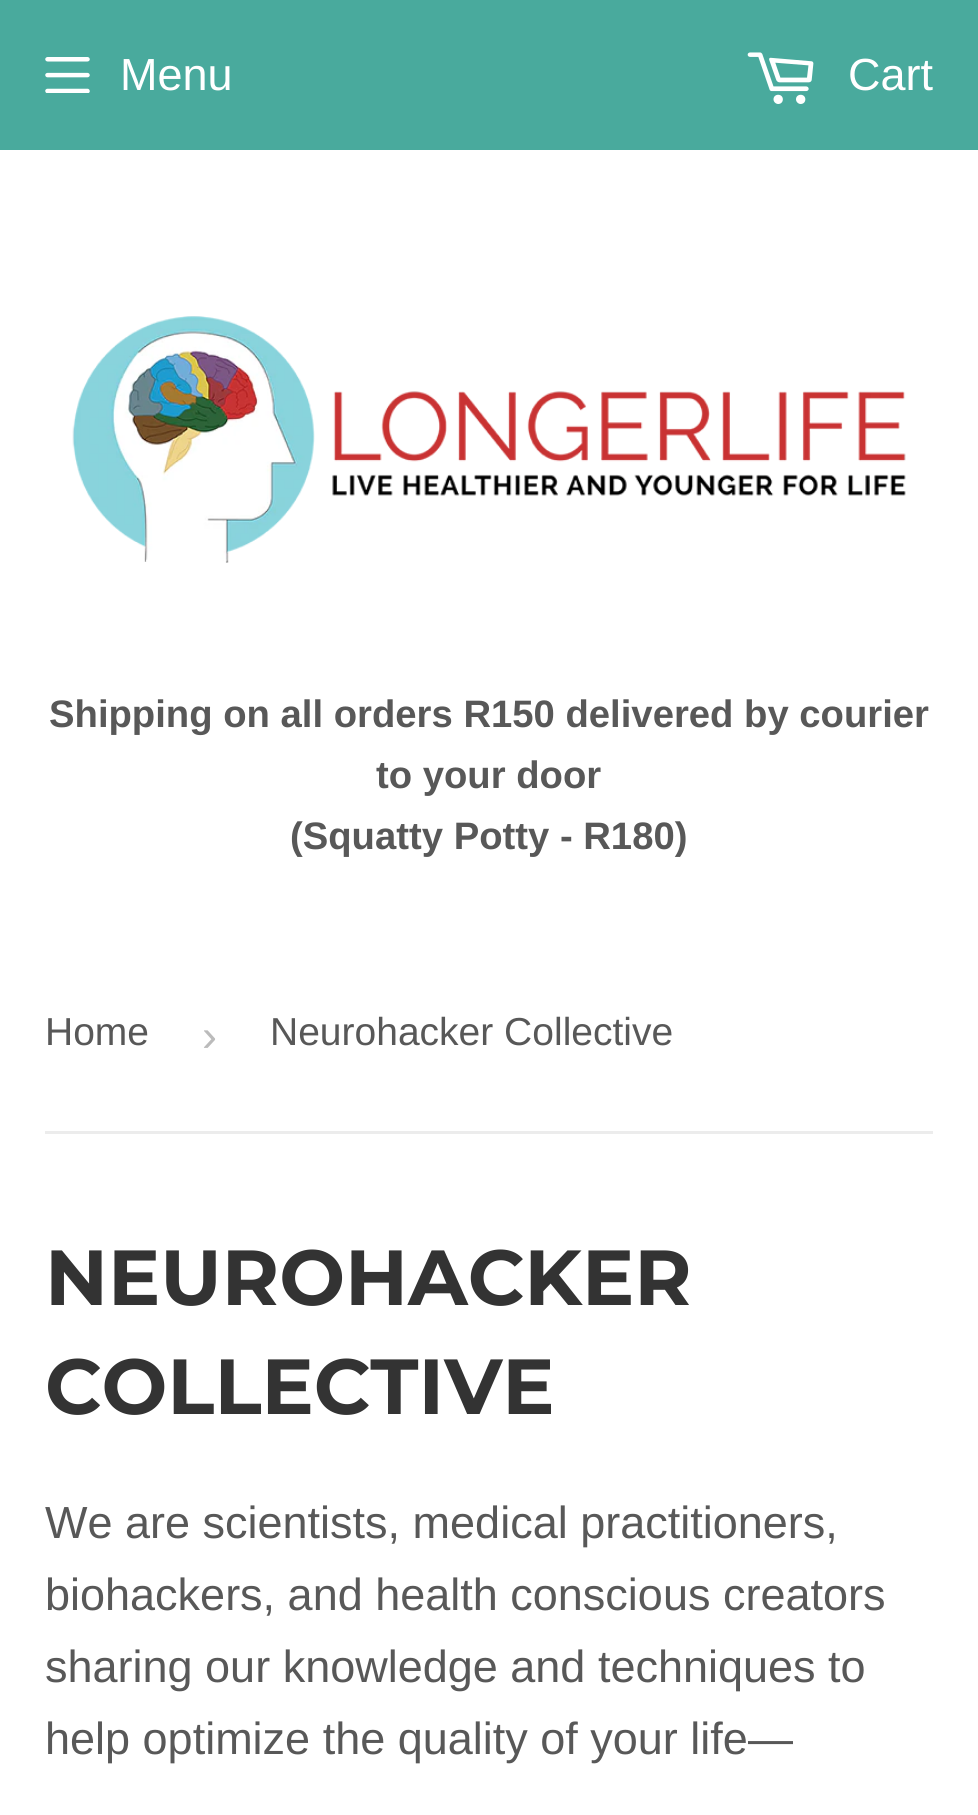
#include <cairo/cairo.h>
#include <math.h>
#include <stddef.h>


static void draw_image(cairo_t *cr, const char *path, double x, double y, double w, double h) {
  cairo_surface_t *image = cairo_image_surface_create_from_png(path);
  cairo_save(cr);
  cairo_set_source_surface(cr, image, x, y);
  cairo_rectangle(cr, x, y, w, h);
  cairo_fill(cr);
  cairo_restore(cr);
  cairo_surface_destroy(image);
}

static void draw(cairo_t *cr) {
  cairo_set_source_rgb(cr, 1, 1, 1);
  cairo_paint(cr);
  cairo_set_source_rgb(cr, 73 / 255.0, 170 / 255.0, 157 / 255.0);
  cairo_rectangle(cr, 0, 0, 978, 150);
  cairo_fill(cr);
  draw_image(cr, "images/1.png", 45, 57, 45, 36);
  draw_image(cr, "images/2.png", 747, 52, 67, 52);
  draw_image(cr, "images/3.png", 72, 316, 834, 247);
  cairo_set_source_rgb(cr, 236 / 255.0, 236 / 255.0, 236 / 255.0);
  cairo_rectangle(cr, 45, 1131, 888, 3);
  cairo_fill(cr);
  cairo_select_font_face(cr, "Liberation Sans", CAIRO_FONT_SLANT_NORMAL, CAIRO_FONT_WEIGHT_NORMAL);
  cairo_set_font_size(cr, 45);
  cairo_set_source_rgb(cr, 1, 1, 1);
  cairo_move_to(cr, 120, 90);
  cairo_show_text(cr, "Menu");
  cairo_move_to(cr, 848, 90);
  cairo_show_text(cr, "Cart");
  cairo_select_font_face(cr, "Liberation Sans", CAIRO_FONT_SLANT_NORMAL, CAIRO_FONT_WEIGHT_BOLD);
  cairo_set_font_size(cr, 38.25);
  cairo_set_source_rgb(cr, 88 / 255.0, 88 / 255.0, 88 / 255.0);
  cairo_move_to(cr, 49, 727);
  cairo_show_text(cr, "Shipping on all orders R150 delivered by courier");
  cairo_move_to(cr, 376, 788);
  cairo_show_text(cr, "to your door");
  cairo_move_to(cr, 290, 849);
  cairo_show_text(cr, "(Squatty Potty - R180)");
  cairo_select_font_face(cr, "Liberation Sans", CAIRO_FONT_SLANT_NORMAL, CAIRO_FONT_WEIGHT_NORMAL);
  cairo_set_font_size(cr, 39);
  cairo_move_to(cr, 45, 1045);
  cairo_show_text(cr, "Home");
  cairo_set_font_size(cr, 45);
  cairo_set_source_rgb(cr, 187 / 255.0, 187 / 255.0, 187 / 255.0);
  cairo_move_to(cr, 202, 1051);
  cairo_show_text(cr, "›");
  cairo_set_font_size(cr, 39);
  cairo_set_source_rgb(cr, 88 / 255.0, 88 / 255.0, 88 / 255.0);
  cairo_move_to(cr, 270, 1045);
  cairo_show_text(cr, "Neurohacker Collective");
  cairo_select_font_face(cr, "Montserrat Thin", CAIRO_FONT_SLANT_NORMAL, CAIRO_FONT_WEIGHT_NORMAL);
  cairo_set_font_size(cr, 78);
  cairo_set_source_rgb(cr, 51 / 255.0, 51 / 255.0, 51 / 255.0);
  cairo_move_to(cr, 45, 1305);
  cairo_show_text(cr, "NEUROHACKER");
  cairo_move_to(cr, 45, 1414);
  cairo_show_text(cr, "COLLECTIVE");
  cairo_select_font_face(cr, "Liberation Sans", CAIRO_FONT_SLANT_NORMAL, CAIRO_FONT_WEIGHT_NORMAL);
  cairo_set_font_size(cr, 45);
  cairo_set_source_rgb(cr, 88 / 255.0, 88 / 255.0, 88 / 255.0);
  cairo_move_to(cr, 45, 1538);
  cairo_show_text(cr, "We are scientists, medical practitioners,");
  cairo_move_to(cr, 45, 1610);
  cairo_show_text(cr, "biohackers, and health conscious creators");
  cairo_move_to(cr, 45, 1682);
  cairo_show_text(cr, "sharing our knowledge and techniques to");
  cairo_move_to(cr, 45, 1754);
  cairo_show_text(cr, "help optimize the quality of your life—");
}

int main(void) {
  cairo_surface_t *surface = cairo_image_surface_create(CAIRO_FORMAT_RGB24, 978, 1815);
  cairo_t *cr = cairo_create(surface);
  cairo_font_options_t *options = cairo_font_options_create();
  cairo_font_options_set_hint_metrics(options, CAIRO_HINT_METRICS_OFF);
  cairo_font_options_set_hint_style(options, CAIRO_HINT_STYLE_NONE);
  cairo_set_font_options(cr, options);
  cairo_set_miter_limit(cr, 4);
  draw(cr);
  cairo_surface_write_to_png(surface, "out.png");
  cairo_font_options_destroy(options);
  cairo_destroy(cr);
  cairo_surface_destroy(surface);
  return 0;
}
